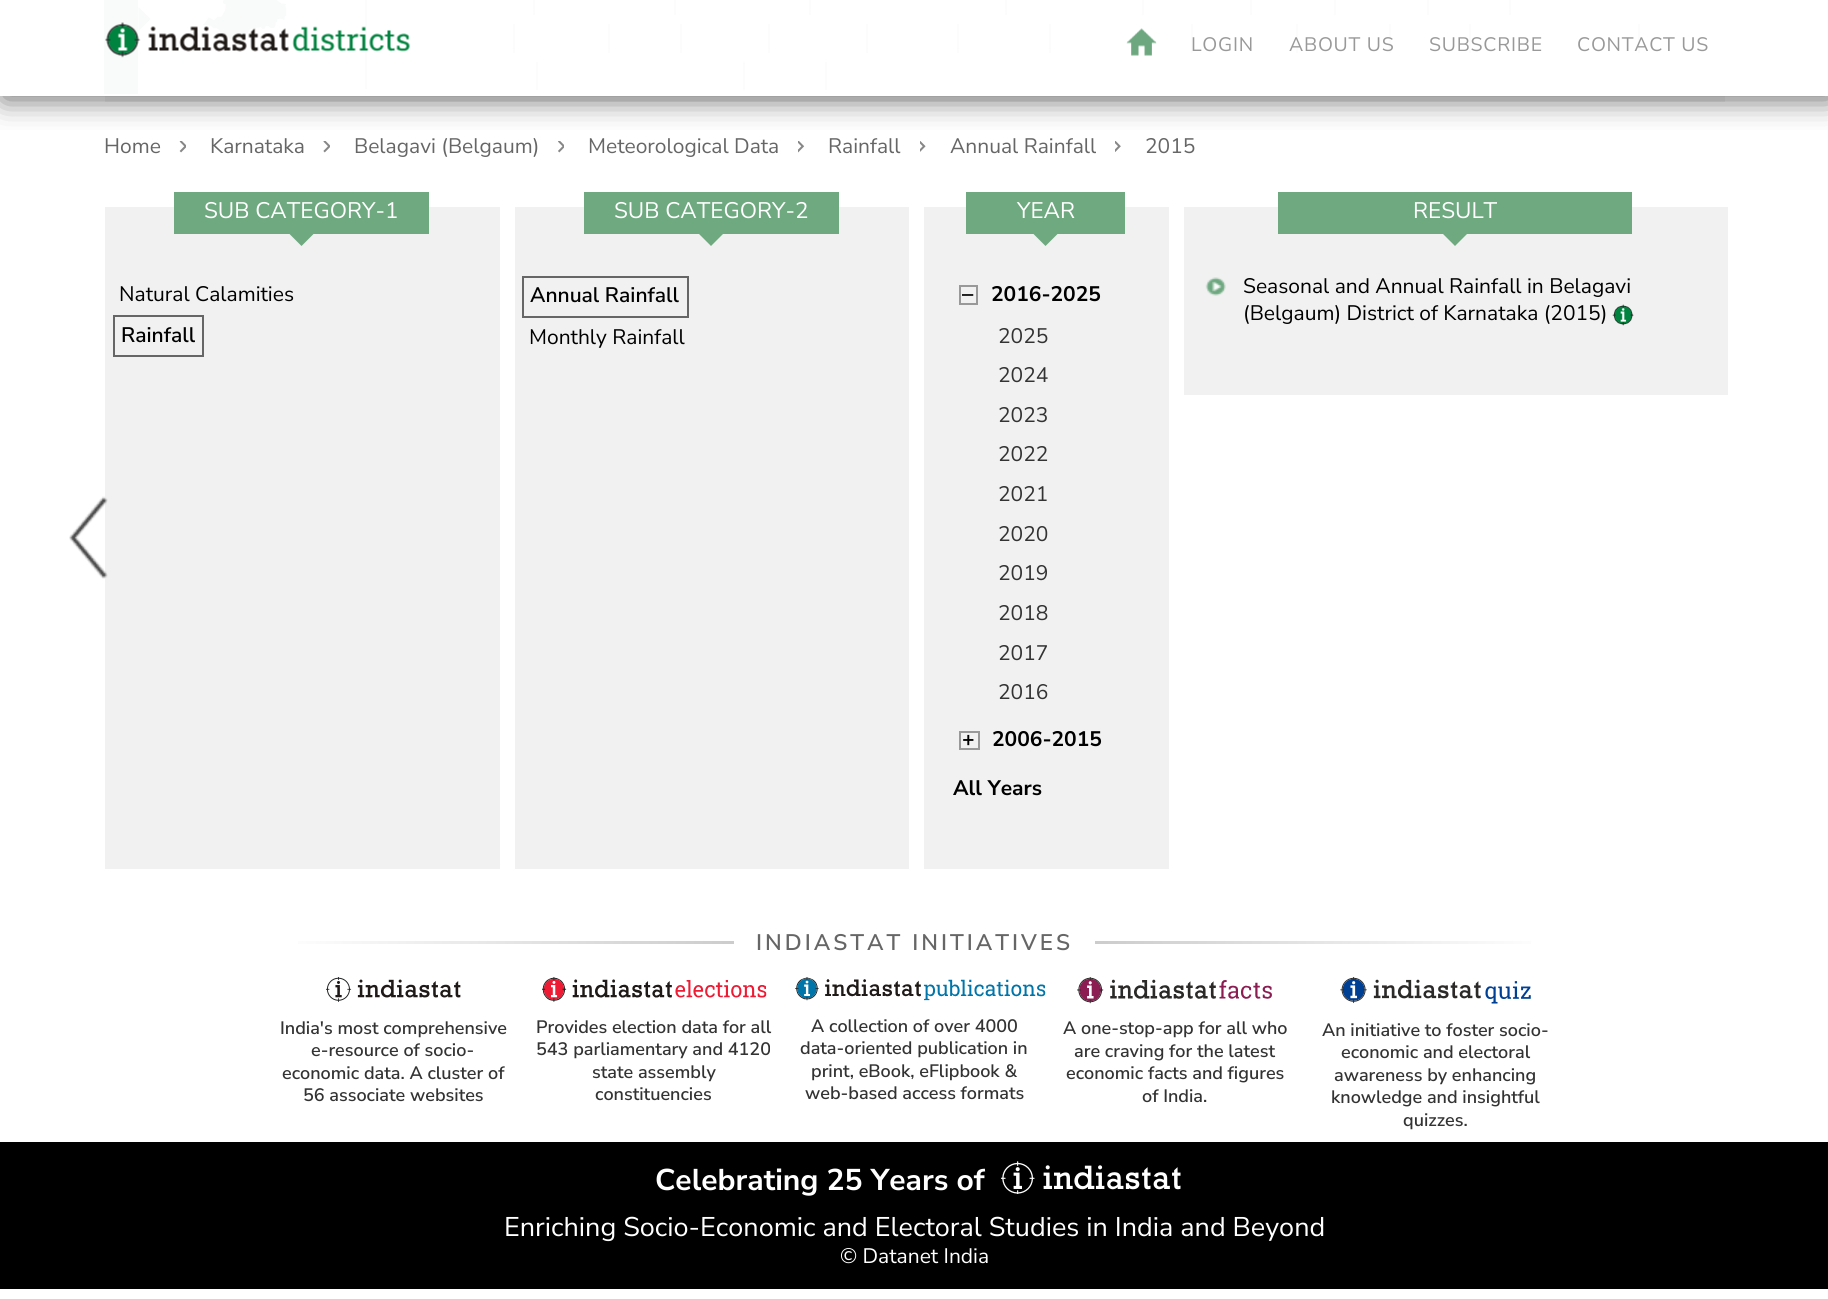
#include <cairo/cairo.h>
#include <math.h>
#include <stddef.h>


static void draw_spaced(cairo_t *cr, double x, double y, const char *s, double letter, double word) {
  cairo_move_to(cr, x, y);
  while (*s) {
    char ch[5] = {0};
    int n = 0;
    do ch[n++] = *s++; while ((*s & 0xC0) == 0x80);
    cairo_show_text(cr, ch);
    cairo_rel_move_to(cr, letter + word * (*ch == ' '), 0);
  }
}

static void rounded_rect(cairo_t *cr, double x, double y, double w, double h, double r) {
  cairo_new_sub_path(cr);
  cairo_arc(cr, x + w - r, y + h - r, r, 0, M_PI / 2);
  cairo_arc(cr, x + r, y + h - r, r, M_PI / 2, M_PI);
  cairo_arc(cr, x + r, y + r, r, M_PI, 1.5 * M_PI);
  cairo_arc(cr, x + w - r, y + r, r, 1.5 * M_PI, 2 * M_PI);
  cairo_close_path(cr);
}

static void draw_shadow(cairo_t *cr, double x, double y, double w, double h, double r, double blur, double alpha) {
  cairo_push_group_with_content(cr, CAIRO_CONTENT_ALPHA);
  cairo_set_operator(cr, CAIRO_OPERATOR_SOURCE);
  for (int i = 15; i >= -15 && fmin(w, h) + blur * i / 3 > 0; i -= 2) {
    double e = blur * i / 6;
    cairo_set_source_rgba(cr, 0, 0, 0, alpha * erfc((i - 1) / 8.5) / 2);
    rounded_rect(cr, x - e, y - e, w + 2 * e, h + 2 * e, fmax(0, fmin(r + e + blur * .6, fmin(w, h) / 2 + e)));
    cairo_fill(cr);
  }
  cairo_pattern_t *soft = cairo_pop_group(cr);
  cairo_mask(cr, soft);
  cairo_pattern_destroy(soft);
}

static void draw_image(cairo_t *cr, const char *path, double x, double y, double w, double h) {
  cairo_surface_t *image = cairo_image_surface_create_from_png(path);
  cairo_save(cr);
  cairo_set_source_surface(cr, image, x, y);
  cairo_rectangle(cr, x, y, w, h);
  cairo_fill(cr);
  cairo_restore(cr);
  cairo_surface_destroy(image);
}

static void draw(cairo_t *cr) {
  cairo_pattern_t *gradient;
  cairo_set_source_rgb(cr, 1, 1, 1);
  cairo_paint(cr);
  cairo_set_source_rgb(cr, 241 / 255.0, 241 / 255.0, 241 / 255.0);
  cairo_rectangle(cr, 105, 96, 1620, 6);
  cairo_fill(cr);
  cairo_set_source_rgb(cr, 248 / 255.0, 251 / 255.0, 249 / 255.0);
  cairo_rectangle(cr, 104, 0, 34, 94);
  cairo_fill(cr);
  cairo_new_path(cr);
  cairo_move_to(cr, 138.5, 31);
  cairo_line_to(cr, 138.5, 7);
  cairo_line_to(cr, 150.5, 19);
  cairo_close_path(cr);
  cairo_fill(cr);
  cairo_set_source_rgb(cr, 252 / 255.0, 252 / 255.0, 252 / 255.0);
  cairo_rectangle(cr, 365, 0, 2, 89);
  cairo_fill(cr);
  draw_image(cr, "images/3.png", 202, 0, 85, 41);
  cairo_rectangle(cr, 533, 0, 2, 15);
  cairo_fill(cr);
  cairo_rectangle(cr, 674, 0, 2, 15);
  cairo_fill(cr);
  cairo_rectangle(cr, 809, 0, 2, 15);
  cairo_fill(cr);
  cairo_rectangle(cr, 1005, 0, 2, 15);
  cairo_fill(cr);
  cairo_rectangle(cr, 1142, 0, 2, 15);
  cairo_fill(cr);
  cairo_rectangle(cr, 1250, 0, 2, 15);
  cairo_fill(cr);
  cairo_rectangle(cr, 1334, 0, 2, 15);
  cairo_fill(cr);
  cairo_rectangle(cr, 1427, 0, 2, 15);
  cairo_fill(cr);
  cairo_rectangle(cr, 1509, 0, 2, 15);
  cairo_fill(cr);
  cairo_rectangle(cr, 513, 24, 2, 29);
  cairo_fill(cr);
  cairo_rectangle(cr, 608, 24, 2, 29);
  cairo_fill(cr);
  cairo_rectangle(cr, 680, 24, 2, 29);
  cairo_fill(cr);
  cairo_rectangle(cr, 768, 24, 2, 29);
  cairo_fill(cr);
  cairo_rectangle(cr, 866, 24, 2, 29);
  cairo_fill(cr);
  cairo_rectangle(cr, 957, 24, 2, 29);
  cairo_fill(cr);
  cairo_rectangle(cr, 1049, 24, 2, 29);
  cairo_fill(cr);
  cairo_rectangle(cr, 1191, 24, 2, 29);
  cairo_fill(cr);
  cairo_rectangle(cr, 1296, 24, 2, 29);
  cairo_fill(cr);
  cairo_rectangle(cr, 1389, 24, 2, 29);
  cairo_fill(cr);
  cairo_rectangle(cr, 1469, 24, 2, 29);
  cairo_fill(cr);
  cairo_rectangle(cr, 1638, 24, 2, 29);
  cairo_fill(cr);
  cairo_rectangle(cr, 536, 62, 2, 28);
  cairo_fill(cr);
  cairo_rectangle(cr, 743, 62, 2, 28);
  cairo_fill(cr);
  cairo_rectangle(cr, 825, 62, 2, 28);
  cairo_fill(cr);
  draw_image(cr, "images/4.png", 179, 141, 7, 12);
  draw_image(cr, "images/5.png", 323, 141, 7, 12);
  draw_image(cr, "images/6.png", 558, 141, 6, 12);
  draw_image(cr, "images/7.png", 798, 141, 7, 12);
  draw_image(cr, "images/8.png", 920, 141, 6, 11);
  draw_image(cr, "images/9.png", 1115, 141, 6, 11);
  cairo_save(cr);
  cairo_rectangle(cr, 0, 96, 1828, 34);
  cairo_clip(cr);
  cairo_set_source_rgb(cr, 102 / 255.0, 102 / 255.0, 102 / 255.0);
  draw_shadow(cr, 3, 3, 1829, 96, 0, 15, 1);
  cairo_restore(cr);
  draw_image(cr, "images/1.png", 105, 22, 305, 36);
  draw_image(cr, "images/2.png", 1126, 28, 31, 28);
  cairo_set_source_rgb(cr, 241 / 255.0, 241 / 255.0, 241 / 255.0);
  cairo_rectangle(cr, 105, 207, 395, 662);
  cairo_fill(cr);
  draw_image(cr, "images/10.png", 69, 496, 39, 83);
  cairo_set_source_rgb(cr, 110 / 255.0, 169 / 255.0, 127 / 255.0);
  cairo_rectangle(cr, 174, 192, 255, 42);
  cairo_fill(cr);
  cairo_new_path(cr);
  cairo_move_to(cr, 289.5, 234);
  cairo_line_to(cr, 313.5, 234);
  cairo_line_to(cr, 301.5, 246);
  cairo_close_path(cr);
  cairo_fill(cr);
  cairo_rectangle(cr, 114, 316, 89, 40);
  cairo_set_source_rgb(cr, 102 / 255.0, 102 / 255.0, 102 / 255.0);
  cairo_stroke(cr);
  cairo_set_source_rgb(cr, 241 / 255.0, 241 / 255.0, 241 / 255.0);
  cairo_rectangle(cr, 515, 207, 394, 662);
  cairo_fill(cr);
  cairo_set_source_rgb(cr, 110 / 255.0, 169 / 255.0, 127 / 255.0);
  cairo_rectangle(cr, 584, 192, 255, 42);
  cairo_fill(cr);
  cairo_new_path(cr);
  cairo_move_to(cr, 699, 234);
  cairo_line_to(cr, 723, 234);
  cairo_line_to(cr, 711, 246);
  cairo_close_path(cr);
  cairo_fill(cr);
  cairo_rectangle(cr, 523, 277, 165, 40);
  cairo_set_source_rgb(cr, 102 / 255.0, 102 / 255.0, 102 / 255.0);
  cairo_stroke(cr);
  cairo_set_source_rgb(cr, 241 / 255.0, 241 / 255.0, 241 / 255.0);
  cairo_rectangle(cr, 924, 207, 245, 662);
  cairo_fill(cr);
  cairo_set_source_rgb(cr, 110 / 255.0, 169 / 255.0, 127 / 255.0);
  cairo_rectangle(cr, 966, 192, 159, 42);
  cairo_fill(cr);
  cairo_new_path(cr);
  cairo_move_to(cr, 1033.5, 234);
  cairo_line_to(cr, 1057.5, 234);
  cairo_line_to(cr, 1045.5, 246);
  cairo_close_path(cr);
  cairo_fill(cr);
  cairo_rectangle(cr, 960, 286, 17, 18);
  cairo_set_source_rgb(cr, 153 / 255.0, 153 / 255.0, 153 / 255.0);
  cairo_stroke(cr);
  cairo_rectangle(cr, 960, 732, 19, 17);
  cairo_stroke(cr);
  cairo_set_source_rgb(cr, 241 / 255.0, 241 / 255.0, 241 / 255.0);
  cairo_rectangle(cr, 1184, 207, 544, 188);
  cairo_fill(cr);
  cairo_set_source_rgb(cr, 110 / 255.0, 169 / 255.0, 127 / 255.0);
  cairo_rectangle(cr, 1278, 192, 354, 42);
  cairo_fill(cr);
  cairo_new_path(cr);
  cairo_move_to(cr, 1443, 234);
  cairo_line_to(cr, 1467, 234);
  cairo_line_to(cr, 1455, 246);
  cairo_close_path(cr);
  cairo_fill(cr);
  draw_image(cr, "images/11.png", 1205, 277, 21, 19);
  draw_image(cr, "images/12.png", 1612, 304, 22, 22);
  gradient = cairo_pattern_create_linear(276, 942, 734, 942);
  cairo_pattern_add_color_stop_rgba(gradient, 0, 1, 1, 1, 1);
  cairo_pattern_add_color_stop_rgba(gradient, 1, 204 / 255.0, 204 / 255.0, 204 / 255.0, 1);
  cairo_set_source(cr, gradient);
  cairo_pattern_destroy(gradient);
  cairo_rectangle(cr, 298, 941, 436, 3);
  cairo_fill(cr);
  gradient = cairo_pattern_create_linear(1095, 942, 1553, 942);
  cairo_pattern_add_color_stop_rgba(gradient, 0, 204 / 255.0, 204 / 255.0, 204 / 255.0, 1);
  cairo_pattern_add_color_stop_rgba(gradient, 1, 1, 1, 1, 1);
  cairo_set_source(cr, gradient);
  cairo_pattern_destroy(gradient);
  cairo_rectangle(cr, 1095, 941, 436, 3);
  cairo_fill(cr);
  draw_image(cr, "images/13.png", 326, 977, 135, 25);
  draw_image(cr, "images/14.png", 542, 977, 225, 25);
  draw_image(cr, "images/15.png", 795, 977, 251, 24);
  draw_image(cr, "images/16.png", 1077, 977, 195, 27);
  draw_image(cr, "images/17.png", 1340, 977, 191, 27);
  cairo_set_source_rgb(cr, 0, 0, 0);
  cairo_rectangle(cr, 0, 1142, 1828, 147);
  cairo_fill(cr);
  draw_image(cr, "images/18.png", 1001, 1161, 180, 33);
  cairo_select_font_face(cr, "Nunito Sans", CAIRO_FONT_SLANT_NORMAL, CAIRO_FONT_WEIGHT_NORMAL);
  cairo_set_font_size(cr, 19.5);
  cairo_set_source_rgb(cr, 153 / 255.0, 153 / 255.0, 153 / 255.0);
  draw_spaced(cr, 1191, 51, "LOGIN", 0.75, 0);
  draw_spaced(cr, 1289, 51, "ABOUT US", 0.75, 0);
  draw_spaced(cr, 1429, 51, "SUBSCRIBE", 0.75, 0);
  draw_spaced(cr, 1577, 51, "CONTACT US", 0.75, 0);
  cairo_set_font_size(cr, 21);
  cairo_set_source_rgb(cr, 102 / 255.0, 102 / 255.0, 102 / 255.0);
  cairo_move_to(cr, 104, 153);
  cairo_show_text(cr, "Home");
  cairo_move_to(cr, 210, 153);
  cairo_show_text(cr, "Karnataka");
  cairo_move_to(cr, 354, 153);
  cairo_show_text(cr, "Belagavi (Belgaum)");
  cairo_move_to(cr, 588, 153);
  cairo_show_text(cr, "Meteorological Data");
  cairo_move_to(cr, 828, 153);
  cairo_show_text(cr, "Rainfall");
  cairo_move_to(cr, 950, 153);
  cairo_show_text(cr, "Annual Rainfall");
  cairo_move_to(cr, 1145, 153);
  cairo_show_text(cr, "2015");
  cairo_set_font_size(cr, 22.5);
  cairo_set_source_rgb(cr, 1, 1, 1);
  cairo_move_to(cr, 204, 218);
  cairo_show_text(cr, "SUB CATEGORY-1");
  cairo_set_font_size(cr, 21);
  cairo_set_source_rgb(cr, 0, 0, 0);
  cairo_move_to(cr, 119, 301);
  cairo_show_text(cr, "Natural Calamities");
  cairo_select_font_face(cr, "Nunito Sans SemiBold", CAIRO_FONT_SLANT_NORMAL, CAIRO_FONT_WEIGHT_NORMAL);
  cairo_move_to(cr, 121, 342);
  cairo_show_text(cr, "Rainfall");
  cairo_select_font_face(cr, "Nunito Sans", CAIRO_FONT_SLANT_NORMAL, CAIRO_FONT_WEIGHT_NORMAL);
  cairo_set_font_size(cr, 22.5);
  cairo_set_source_rgb(cr, 1, 1, 1);
  cairo_move_to(cr, 614, 218);
  cairo_show_text(cr, "SUB CATEGORY-2");
  cairo_select_font_face(cr, "Nunito Sans SemiBold", CAIRO_FONT_SLANT_NORMAL, CAIRO_FONT_WEIGHT_NORMAL);
  cairo_set_font_size(cr, 21);
  cairo_set_source_rgb(cr, 0, 0, 0);
  cairo_move_to(cr, 530, 302);
  cairo_show_text(cr, "Annual Rainfall");
  cairo_select_font_face(cr, "Nunito Sans", CAIRO_FONT_SLANT_NORMAL, CAIRO_FONT_WEIGHT_NORMAL);
  cairo_move_to(cr, 529, 344);
  cairo_show_text(cr, "Monthly Rainfall");
  cairo_set_font_size(cr, 22.5);
  cairo_set_source_rgb(cr, 1, 1, 1);
  cairo_move_to(cr, 1017, 218);
  cairo_show_text(cr, "YEAR");
  cairo_select_font_face(cr, "Nunito Sans", CAIRO_FONT_SLANT_NORMAL, CAIRO_FONT_WEIGHT_BOLD);
  cairo_set_source_rgb(cr, 0, 0, 0);
  cairo_move_to(cr, 962, 301);
  cairo_show_text(cr, "–");
  cairo_set_font_size(cr, 21);
  cairo_move_to(cr, 991, 301);
  cairo_show_text(cr, "2016-2025");
  cairo_select_font_face(cr, "Nunito Sans", CAIRO_FONT_SLANT_NORMAL, CAIRO_FONT_WEIGHT_NORMAL);
  cairo_set_source_rgb(cr, 51 / 255.0, 51 / 255.0, 51 / 255.0);
  cairo_move_to(cr, 998, 343);
  cairo_show_text(cr, "2025");
  cairo_move_to(cr, 998, 382);
  cairo_show_text(cr, "2024");
  cairo_move_to(cr, 998, 422);
  cairo_show_text(cr, "2023");
  cairo_move_to(cr, 998, 461);
  cairo_show_text(cr, "2022");
  cairo_move_to(cr, 998, 501);
  cairo_show_text(cr, "2021");
  cairo_move_to(cr, 998, 541);
  cairo_show_text(cr, "2020");
  cairo_move_to(cr, 998, 580);
  cairo_show_text(cr, "2019");
  cairo_move_to(cr, 998, 620);
  cairo_show_text(cr, "2018");
  cairo_move_to(cr, 998, 660);
  cairo_show_text(cr, "2017");
  cairo_move_to(cr, 998, 699);
  cairo_show_text(cr, "2016");
  cairo_select_font_face(cr, "Nunito Sans", CAIRO_FONT_SLANT_NORMAL, CAIRO_FONT_WEIGHT_BOLD);
  cairo_set_source_rgb(cr, 0, 0, 0);
  cairo_move_to(cr, 962, 746);
  cairo_show_text(cr, "+");
  cairo_move_to(cr, 992, 746);
  cairo_show_text(cr, "2006-2015");
  cairo_move_to(cr, 953, 795);
  cairo_show_text(cr, "All Years");
  cairo_select_font_face(cr, "Nunito Sans", CAIRO_FONT_SLANT_NORMAL, CAIRO_FONT_WEIGHT_NORMAL);
  cairo_set_font_size(cr, 22.5);
  cairo_set_source_rgb(cr, 1, 1, 1);
  cairo_move_to(cr, 1413, 218);
  cairo_show_text(cr, "RESULT");
  cairo_set_font_size(cr, 21);
  cairo_set_source_rgb(cr, 0, 0, 0);
  cairo_move_to(cr, 1243, 293);
  cairo_show_text(cr, "Seasonal and Annual Rainfall in Belagavi");
  cairo_move_to(cr, 1243, 320);
  cairo_show_text(cr, "(Belgaum) District of Karnataka (2015)");
  cairo_select_font_face(cr, "Nunito Sans SemiBold", CAIRO_FONT_SLANT_NORMAL, CAIRO_FONT_WEIGHT_NORMAL);
  cairo_set_font_size(cr, 22.5);
  cairo_set_source_rgb(cr, 102 / 255.0, 102 / 255.0, 102 / 255.0);
  draw_spaced(cr, 756, 950, "INDIASTAT INITIATIVES", 3, 0);
  cairo_set_font_size(cr, 18);
  cairo_set_source_rgb(cr, 51 / 255.0, 51 / 255.0, 51 / 255.0);
  cairo_move_to(cr, 280, 1034);
  cairo_show_text(cr, "India's most comprehensive");
  cairo_move_to(cr, 311, 1056);
  cairo_show_text(cr, "e-resource of socio-");
  cairo_move_to(cr, 282, 1079);
  cairo_show_text(cr, "economic data. A cluster of");
  cairo_move_to(cr, 303, 1101);
  cairo_show_text(cr, "56 associate websites");
  cairo_move_to(cr, 536, 1033);
  cairo_show_text(cr, "Provides election data for all");
  cairo_move_to(cr, 536, 1055);
  cairo_show_text(cr, "543 parliamentary and 4120");
  cairo_move_to(cr, 592, 1078);
  cairo_show_text(cr, "state assembly");
  cairo_move_to(cr, 595, 1100);
  cairo_show_text(cr, "constituencies");
  cairo_move_to(cr, 811, 1032);
  cairo_show_text(cr, "A collection of over 4000");
  cairo_move_to(cr, 800, 1054);
  cairo_show_text(cr, "data-oriented publication in");
  cairo_move_to(cr, 811, 1077);
  cairo_show_text(cr, "print, eBook, eFlipbook &");
  cairo_move_to(cr, 805, 1099);
  cairo_show_text(cr, "web-based access formats");
  cairo_move_to(cr, 1063, 1034);
  cairo_show_text(cr, "A one-stop-app for all who");
  cairo_move_to(cr, 1074, 1057);
  cairo_show_text(cr, "are craving for the latest");
  cairo_move_to(cr, 1066, 1079);
  cairo_show_text(cr, "economic facts and figures");
  cairo_move_to(cr, 1142, 1102);
  cairo_show_text(cr, "of India.");
  cairo_move_to(cr, 1322, 1036);
  cairo_show_text(cr, "An initiative to foster socio-");
  cairo_move_to(cr, 1341, 1058);
  cairo_show_text(cr, "economic and electoral");
  cairo_move_to(cr, 1334, 1081);
  cairo_show_text(cr, "awareness by enhancing");
  cairo_move_to(cr, 1331, 1103);
  cairo_show_text(cr, "knowledge and insightful");
  cairo_move_to(cr, 1403, 1126);
  cairo_show_text(cr, "quizzes.");
  cairo_select_font_face(cr, "Nunito Sans", CAIRO_FONT_SLANT_NORMAL, CAIRO_FONT_WEIGHT_BOLD);
  cairo_set_font_size(cr, 30);
  cairo_set_source_rgb(cr, 1, 1, 1);
  cairo_move_to(cr, 655, 1190);
  cairo_show_text(cr, "Celebrating 25 Years of");
  cairo_select_font_face(cr, "Nunito Sans", CAIRO_FONT_SLANT_NORMAL, CAIRO_FONT_WEIGHT_NORMAL);
  cairo_set_font_size(cr, 27);
  cairo_move_to(cr, 504, 1236);
  cairo_show_text(cr, "Enriching Socio-Economic and Electoral Studies in India and Beyond");
  cairo_set_font_size(cr, 21);
  cairo_move_to(cr, 840, 1263);
  cairo_show_text(cr, "© Datanet India");
}

int main(void) {
  cairo_surface_t *surface = cairo_image_surface_create(CAIRO_FORMAT_RGB24, 1828, 1299);
  cairo_t *cr = cairo_create(surface);
  cairo_font_options_t *options = cairo_font_options_create();
  cairo_font_options_set_hint_metrics(options, CAIRO_HINT_METRICS_OFF);
  cairo_font_options_set_hint_style(options, CAIRO_HINT_STYLE_NONE);
  cairo_set_font_options(cr, options);
  cairo_set_miter_limit(cr, 4);
  draw(cr);
  cairo_surface_write_to_png(surface, "out.png");
  cairo_font_options_destroy(options);
  cairo_destroy(cr);
  cairo_surface_destroy(surface);
  return 0;
}
